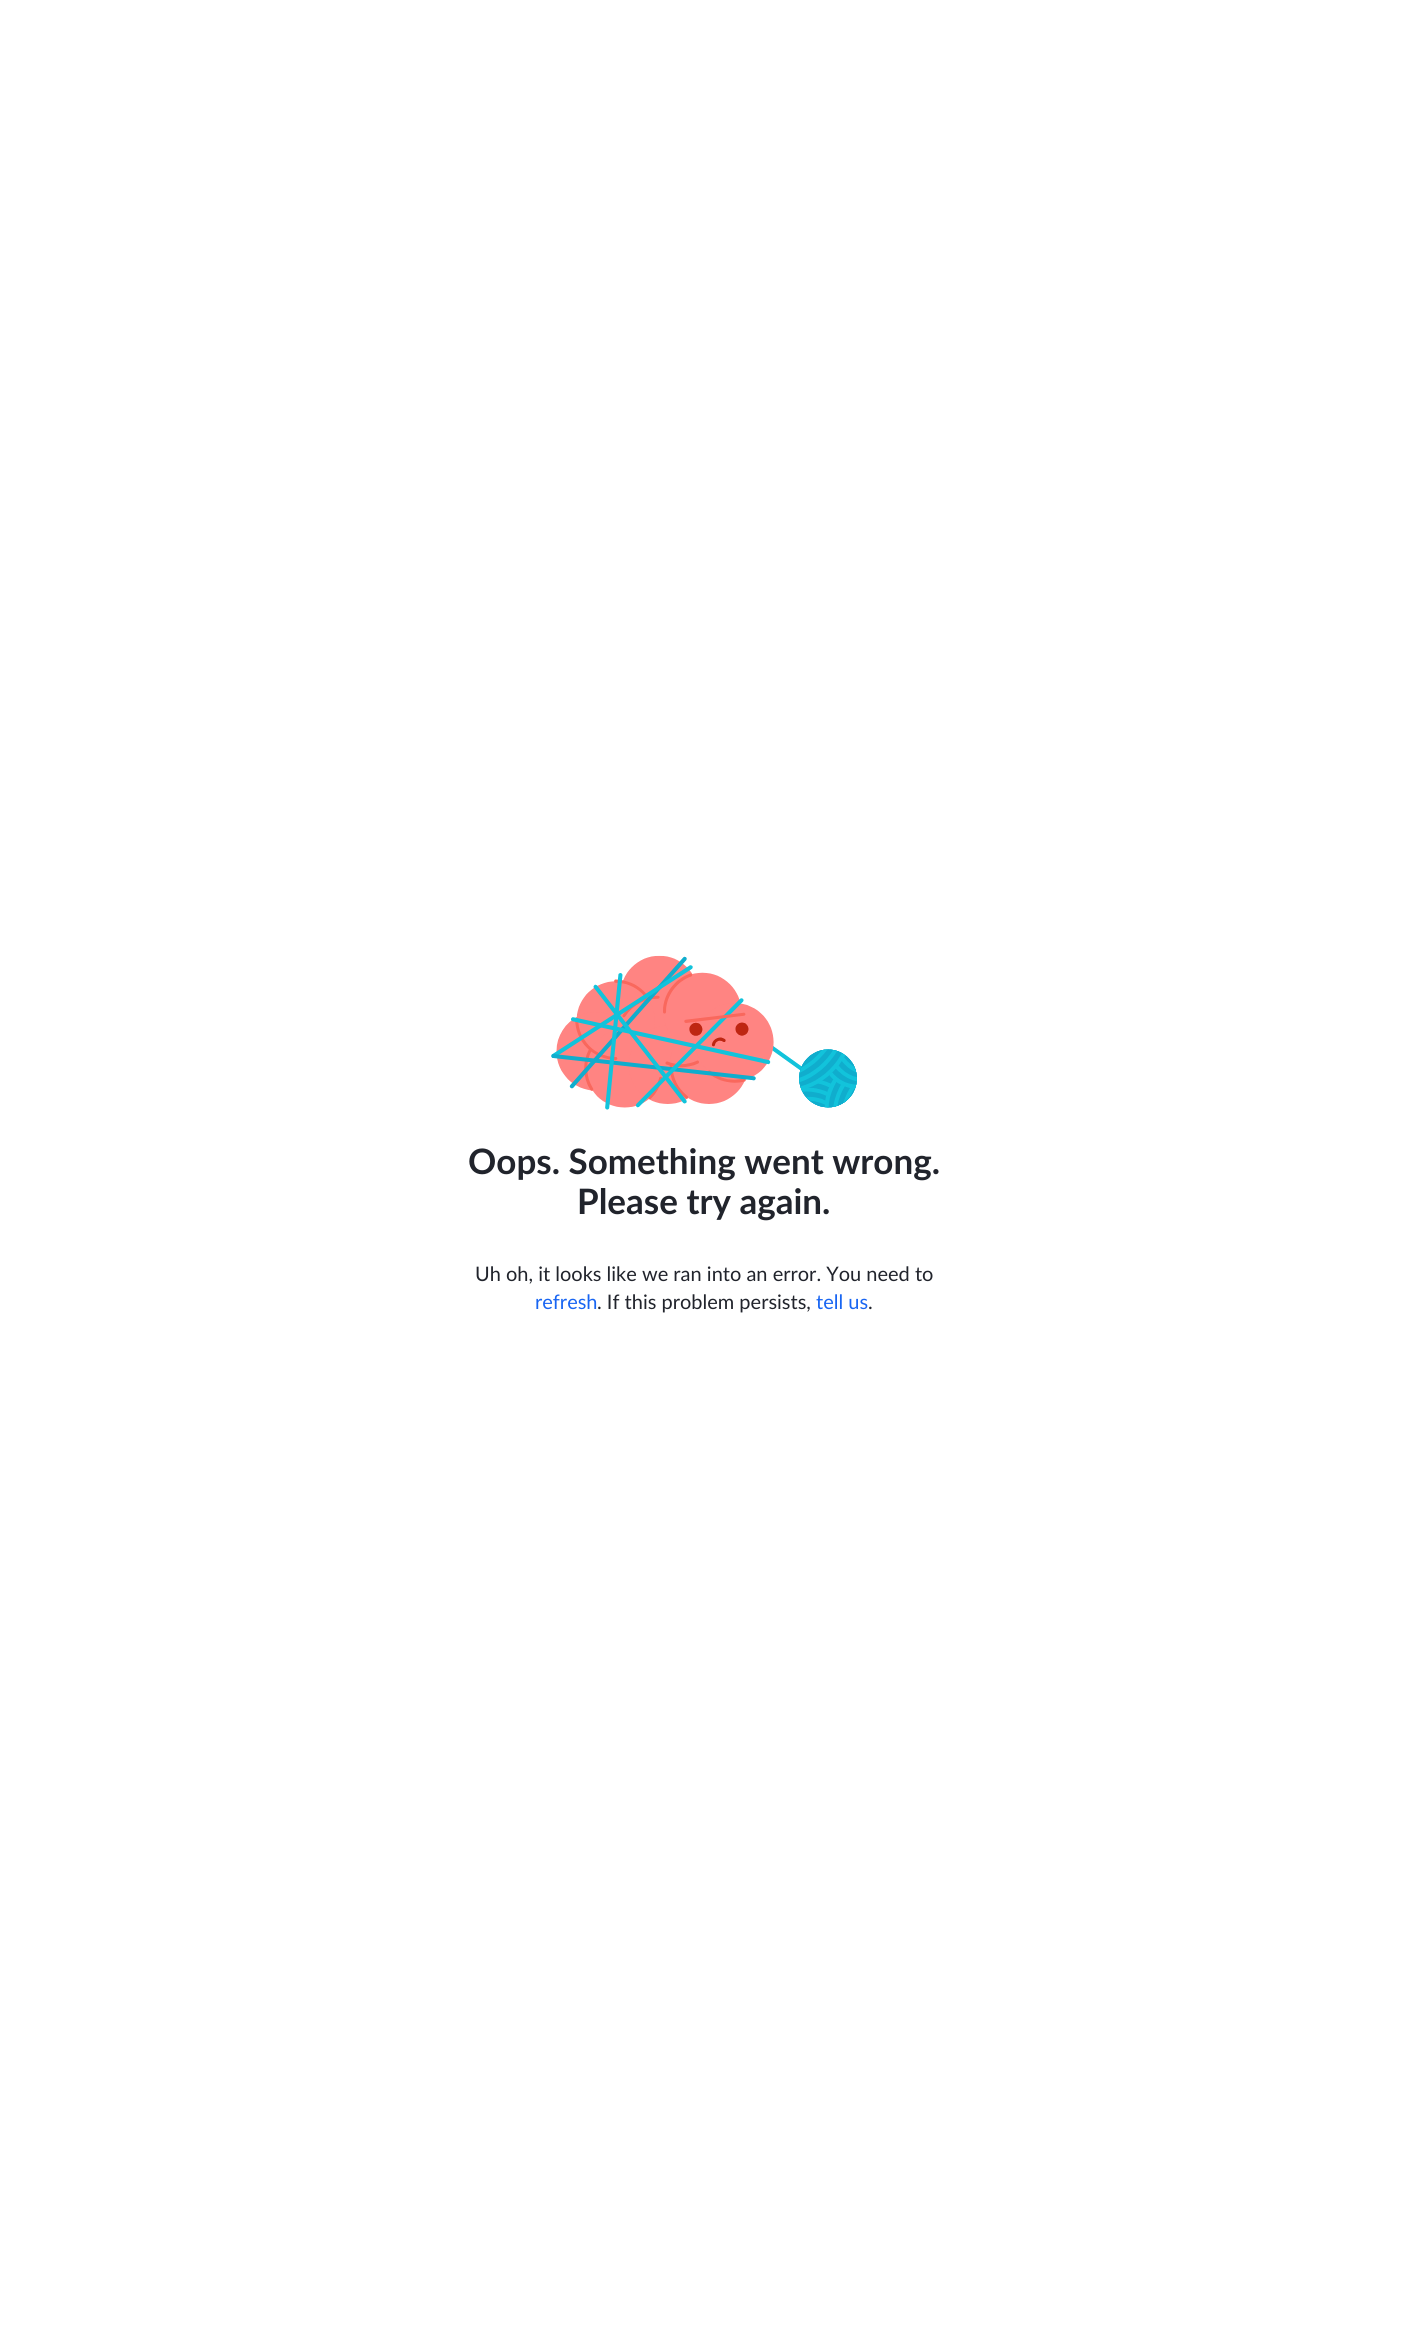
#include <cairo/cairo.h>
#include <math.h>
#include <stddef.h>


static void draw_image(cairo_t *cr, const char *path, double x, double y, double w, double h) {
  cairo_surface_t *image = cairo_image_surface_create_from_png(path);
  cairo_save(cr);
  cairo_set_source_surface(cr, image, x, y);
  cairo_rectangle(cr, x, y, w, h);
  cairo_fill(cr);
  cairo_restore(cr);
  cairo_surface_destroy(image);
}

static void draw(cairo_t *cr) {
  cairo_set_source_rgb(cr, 1, 1, 1);
  cairo_paint(cr);
  draw_image(cr, "images/1.png", 551, 955, 306, 155);
  cairo_select_font_face(cr, "Lato", CAIRO_FONT_SLANT_NORMAL, CAIRO_FONT_WEIGHT_BOLD);
  cairo_set_font_size(cr, 35);
  cairo_set_source_rgb(cr, 33 / 255.0, 36 / 255.0, 44 / 255.0);
  cairo_move_to(cr, 468, 1174);
  cairo_show_text(cr, "Oops. Something went wrong.");
  cairo_move_to(cr, 577, 1214);
  cairo_show_text(cr, "Please try again.");
  cairo_select_font_face(cr, "Lato", CAIRO_FONT_SLANT_NORMAL, CAIRO_FONT_WEIGHT_NORMAL);
  cairo_set_font_size(cr, 20);
  cairo_move_to(cr, 475, 1281);
  cairo_show_text(cr, "Uh oh, it looks like we ran into an error. You need to");
  cairo_set_source_rgb(cr, 24 / 255.0, 101 / 255.0, 242 / 255.0);
  cairo_move_to(cr, 535, 1309);
  cairo_show_text(cr, "refresh");
  cairo_set_source_rgb(cr, 33 / 255.0, 36 / 255.0, 44 / 255.0);
  cairo_move_to(cr, 597, 1309);
  cairo_show_text(cr, ". If this problem persists,");
  cairo_set_source_rgb(cr, 24 / 255.0, 101 / 255.0, 242 / 255.0);
  cairo_move_to(cr, 816, 1309);
  cairo_show_text(cr, "tell us");
  cairo_set_source_rgb(cr, 33 / 255.0, 36 / 255.0, 44 / 255.0);
  cairo_move_to(cr, 868, 1309);
  cairo_show_text(cr, ".");
}

int main(void) {
  cairo_surface_t *surface = cairo_image_surface_create(CAIRO_FORMAT_RGB24, 1407, 2345);
  cairo_t *cr = cairo_create(surface);
  cairo_font_options_t *options = cairo_font_options_create();
  cairo_font_options_set_hint_metrics(options, CAIRO_HINT_METRICS_OFF);
  cairo_font_options_set_hint_style(options, CAIRO_HINT_STYLE_NONE);
  cairo_set_font_options(cr, options);
  cairo_set_miter_limit(cr, 4);
  draw(cr);
  cairo_surface_write_to_png(surface, "out.png");
  cairo_font_options_destroy(options);
  cairo_destroy(cr);
  cairo_surface_destroy(surface);
  return 0;
}
